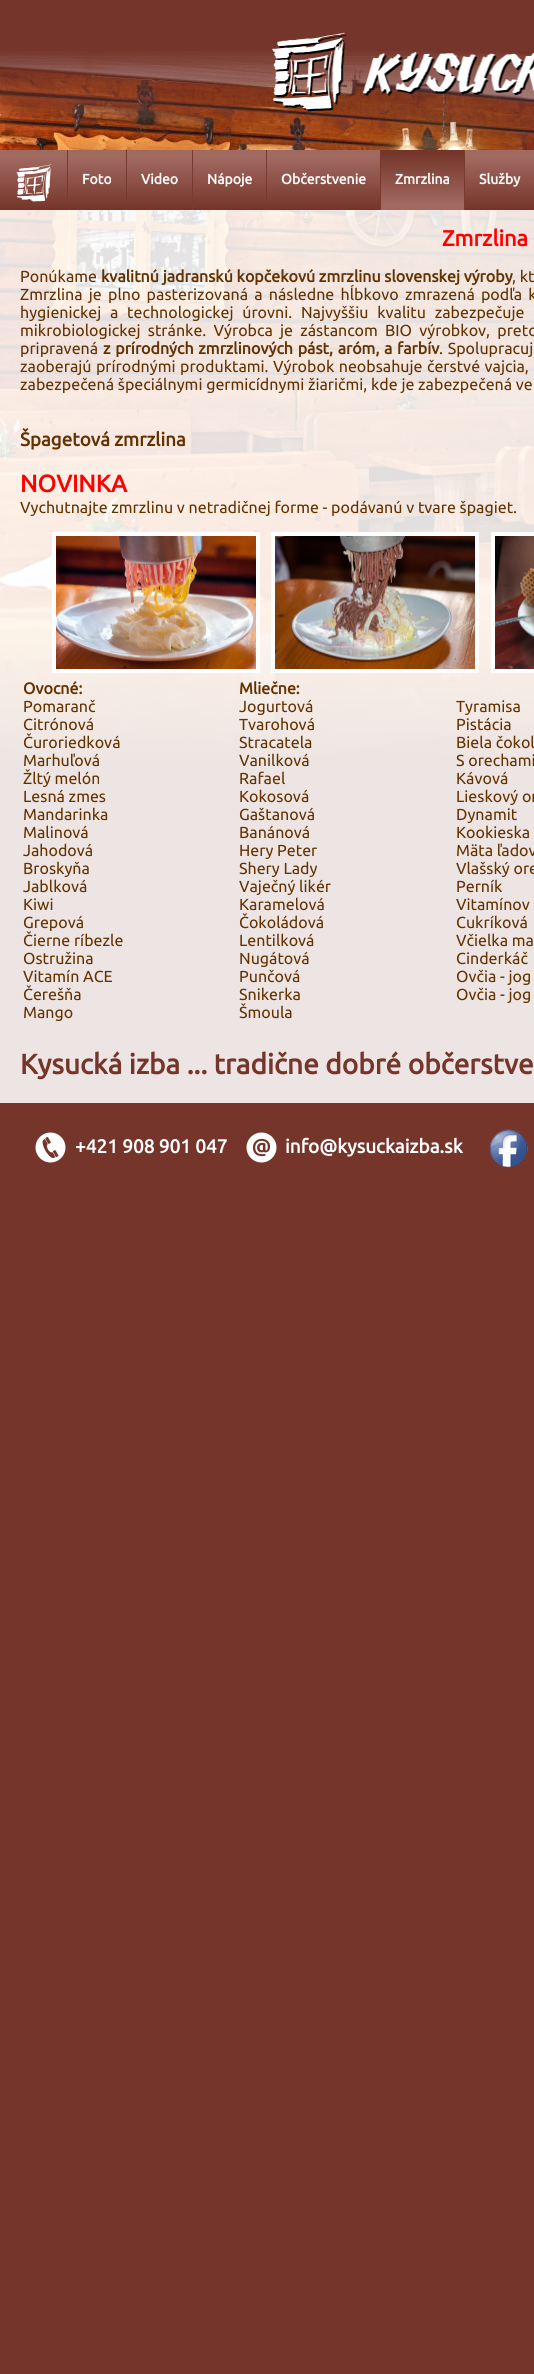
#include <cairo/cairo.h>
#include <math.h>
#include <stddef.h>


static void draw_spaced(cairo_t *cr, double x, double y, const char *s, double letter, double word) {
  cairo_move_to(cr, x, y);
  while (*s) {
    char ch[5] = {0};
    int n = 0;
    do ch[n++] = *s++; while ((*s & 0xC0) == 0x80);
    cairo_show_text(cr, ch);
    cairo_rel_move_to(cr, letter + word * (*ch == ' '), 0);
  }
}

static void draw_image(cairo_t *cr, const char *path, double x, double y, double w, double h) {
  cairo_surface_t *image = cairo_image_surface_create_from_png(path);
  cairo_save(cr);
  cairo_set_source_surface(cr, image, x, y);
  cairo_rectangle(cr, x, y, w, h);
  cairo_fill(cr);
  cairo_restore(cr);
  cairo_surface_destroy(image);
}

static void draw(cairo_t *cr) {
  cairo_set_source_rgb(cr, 117 / 255.0, 53 / 255.0, 43 / 255.0);
  cairo_paint(cr);
  draw_image(cr, "images/1.png", 0, 51, 534, 710);
  draw_image(cr, "images/2.png", 272, 32, 262, 80);
  draw_image(cr, "images/3.png", 0, 150, 534, 60);
  draw_image(cr, "images/4.png", 16, 164, 36, 38);
  cairo_set_source_rgb(cr, 120 / 255.0, 58 / 255.0, 47 / 255.0);
  cairo_rectangle(cr, 67, 150, 1, 60);
  cairo_fill(cr);
  cairo_rectangle(cr, 126, 150, 1, 60);
  cairo_fill(cr);
  cairo_rectangle(cr, 192, 150, 1, 60);
  cairo_fill(cr);
  cairo_rectangle(cr, 266, 150, 1, 60);
  cairo_fill(cr);
  draw_image(cr, "images/5.png", 381, 150, 83, 60);
  cairo_rectangle(cr, 380, 150, 1, 60);
  cairo_fill(cr);
  cairo_rectangle(cr, 464, 150, 1, 60);
  cairo_fill(cr);
  cairo_set_source_rgba(cr, 1, 1, 1, 0.87);
  cairo_rectangle(cr, 0, 210, 534, 893);
  cairo_fill(cr);
  cairo_rectangle(cr, 54, 534, 204, 137);
  cairo_set_source_rgb(cr, 1, 1, 1);
  cairo_set_line_width(cr, 4);
  cairo_stroke(cr);
  cairo_rectangle(cr, 273, 534, 204, 137);
  cairo_stroke(cr);
  cairo_rectangle(cr, 493, 534, 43, 137);
  cairo_stroke(cr);
  draw_image(cr, "images/6.png", 56, 536, 200, 133);
  draw_image(cr, "images/7.png", 275, 536, 200, 133);
  draw_image(cr, "images/8.png", 495, 536, 39, 133);
  draw_image(cr, "images/9.png", 35, 1132, 31, 31);
  draw_image(cr, "images/10.png", 246, 1132, 31, 31);
  draw_image(cr, "images/11.png", 489, 1129, 39, 39);
  cairo_select_font_face(cr, "Ubuntu", CAIRO_FONT_SLANT_NORMAL, CAIRO_FONT_WEIGHT_BOLD);
  cairo_set_font_size(cr, 14);
  cairo_move_to(cr, 82, 184);
  cairo_show_text(cr, "Foto");
  cairo_move_to(cr, 141, 184);
  cairo_show_text(cr, "Video");
  cairo_move_to(cr, 207, 184);
  cairo_show_text(cr, "Nápoje");
  cairo_move_to(cr, 281, 184);
  cairo_show_text(cr, "Občerstvenie");
  cairo_move_to(cr, 395, 184);
  cairo_show_text(cr, "Zmrzlina");
  cairo_move_to(cr, 479, 184);
  cairo_show_text(cr, "Služby");
  cairo_set_font_size(cr, 22);
  cairo_set_source_rgb(cr, 1, 0, 0);
  cairo_move_to(cr, 442, 246);
  cairo_show_text(cr, "Zmrzlina");
  cairo_select_font_face(cr, "Ubuntu", CAIRO_FONT_SLANT_NORMAL, CAIRO_FONT_WEIGHT_NORMAL);
  cairo_set_font_size(cr, 16);
  cairo_set_source_rgb(cr, 100 / 255.0, 50 / 255.0, 0);
  cairo_move_to(cr, 20, 282);
  cairo_show_text(cr, "Ponúkame");
  cairo_select_font_face(cr, "Ubuntu", CAIRO_FONT_SLANT_NORMAL, CAIRO_FONT_WEIGHT_BOLD);
  cairo_move_to(cr, 101, 282);
  cairo_show_text(cr, "kvalitnú jadranskú kopčekovú zmrzlinu slovenskej výroby");
  cairo_select_font_face(cr, "Ubuntu", CAIRO_FONT_SLANT_NORMAL, CAIRO_FONT_WEIGHT_NORMAL);
  cairo_move_to(cr, 512, 282);
  cairo_show_text(cr, ", kt");
  draw_spaced(cr, 20, 300, "Zmrzlina je plno pasterizovaná a následne hĺbkovo zmrazená podľa k", 0, 2.5);
  draw_spaced(cr, 20, 318, "hygienickej a technologickej úrovni. Najvyššiu kvalitu zabezpečuje", 0, 5);
  draw_spaced(cr, 20, 336, "mikrobiologickej stránke. Výrobca je zástancom BIO výrobkov, preto", 0, 3.5);
  cairo_move_to(cr, 20, 354);
  cairo_show_text(cr, "pripravená");
  cairo_select_font_face(cr, "Ubuntu", CAIRO_FONT_SLANT_NORMAL, CAIRO_FONT_WEIGHT_BOLD);
  draw_spaced(cr, 103, 354, "z prírodných zmrzlinových pást, aróm, a farbív", 0, 1);
  cairo_select_font_face(cr, "Ubuntu", CAIRO_FONT_SLANT_NORMAL, CAIRO_FONT_WEIGHT_NORMAL);
  draw_spaced(cr, 439, 354, ". Spolupracuj", 0, 1);
  draw_spaced(cr, 20, 372, "zaoberajú prírodnými produktami. Výrobok neobsahuje čerstvé vajcia,", 0, 0.75);
  cairo_move_to(cr, 20, 390);
  cairo_show_text(cr, "zabezpečená špeciálnymi germicídnymi žiaričmi, kde je zabezpečená ve");
  cairo_select_font_face(cr, "Ubuntu", CAIRO_FONT_SLANT_NORMAL, CAIRO_FONT_WEIGHT_BOLD);
  cairo_set_font_size(cr, 18.75);
  cairo_move_to(cr, 20, 446);
  cairo_show_text(cr, "Špagetová zmrzlina");
  cairo_set_font_size(cr, 24);
  cairo_set_source_rgb(cr, 1, 0, 0);
  cairo_move_to(cr, 20, 492);
  cairo_show_text(cr, "NOVINKA");
  cairo_select_font_face(cr, "Ubuntu", CAIRO_FONT_SLANT_NORMAL, CAIRO_FONT_WEIGHT_NORMAL);
  cairo_set_font_size(cr, 16);
  cairo_set_source_rgb(cr, 100 / 255.0, 50 / 255.0, 0);
  cairo_move_to(cr, 20, 513);
  cairo_show_text(cr, "Vychutnajte zmrzlinu v netradičnej forme - podávanú v tvare špagiet.");
  cairo_select_font_face(cr, "Ubuntu", CAIRO_FONT_SLANT_NORMAL, CAIRO_FONT_WEIGHT_BOLD);
  cairo_move_to(cr, 23, 694);
  cairo_show_text(cr, "Ovocné:");
  cairo_select_font_face(cr, "Ubuntu", CAIRO_FONT_SLANT_NORMAL, CAIRO_FONT_WEIGHT_NORMAL);
  cairo_move_to(cr, 23, 712);
  cairo_show_text(cr, "Pomaranč");
  cairo_move_to(cr, 23, 730);
  cairo_show_text(cr, "Citrónová");
  cairo_move_to(cr, 23, 748);
  cairo_show_text(cr, "Čuroriedková");
  cairo_move_to(cr, 23, 766);
  cairo_show_text(cr, "Marhuľová");
  cairo_move_to(cr, 23, 784);
  cairo_show_text(cr, "Žltý melón");
  cairo_move_to(cr, 23, 802);
  cairo_show_text(cr, "Lesná zmes");
  cairo_move_to(cr, 23, 820);
  cairo_show_text(cr, "Mandarinka");
  cairo_move_to(cr, 23, 838);
  cairo_show_text(cr, "Malinová");
  cairo_move_to(cr, 23, 856);
  cairo_show_text(cr, "Jahodová");
  cairo_move_to(cr, 23, 874);
  cairo_show_text(cr, "Broskyňa");
  cairo_move_to(cr, 23, 892);
  cairo_show_text(cr, "Jablková");
  cairo_move_to(cr, 23, 910);
  cairo_show_text(cr, "Kiwi");
  cairo_move_to(cr, 23, 928);
  cairo_show_text(cr, "Grepová");
  cairo_move_to(cr, 23, 946);
  cairo_show_text(cr, "Čierne ríbezle");
  cairo_move_to(cr, 23, 964);
  cairo_show_text(cr, "Ostružina");
  cairo_move_to(cr, 23, 982);
  cairo_show_text(cr, "Vitamín ACE");
  cairo_move_to(cr, 23, 1000);
  cairo_show_text(cr, "Čerešňa");
  cairo_move_to(cr, 23, 1018);
  cairo_show_text(cr, "Mango");
  cairo_select_font_face(cr, "Ubuntu", CAIRO_FONT_SLANT_NORMAL, CAIRO_FONT_WEIGHT_BOLD);
  cairo_move_to(cr, 239, 694);
  cairo_show_text(cr, "Mliečne:");
  cairo_select_font_face(cr, "Ubuntu", CAIRO_FONT_SLANT_NORMAL, CAIRO_FONT_WEIGHT_NORMAL);
  cairo_move_to(cr, 239, 712);
  cairo_show_text(cr, "Jogurtová");
  cairo_move_to(cr, 239, 730);
  cairo_show_text(cr, "Tvarohová");
  cairo_move_to(cr, 239, 748);
  cairo_show_text(cr, "Stracatela");
  cairo_move_to(cr, 239, 766);
  cairo_show_text(cr, "Vanilková");
  cairo_move_to(cr, 239, 784);
  cairo_show_text(cr, "Rafael");
  cairo_move_to(cr, 239, 802);
  cairo_show_text(cr, "Kokosová");
  cairo_move_to(cr, 239, 820);
  cairo_show_text(cr, "Gaštanová");
  cairo_move_to(cr, 239, 838);
  cairo_show_text(cr, "Banánová");
  cairo_move_to(cr, 239, 856);
  cairo_show_text(cr, "Hery Peter");
  cairo_move_to(cr, 239, 874);
  cairo_show_text(cr, "Shery Lady");
  cairo_move_to(cr, 239, 892);
  cairo_show_text(cr, "Vaječný likér");
  cairo_move_to(cr, 239, 910);
  cairo_show_text(cr, "Karamelová");
  cairo_move_to(cr, 239, 928);
  cairo_show_text(cr, "Čokoládová");
  cairo_move_to(cr, 239, 946);
  cairo_show_text(cr, "Lentilková");
  cairo_move_to(cr, 239, 964);
  cairo_show_text(cr, "Nugátová");
  cairo_move_to(cr, 239, 982);
  cairo_show_text(cr, "Punčová");
  cairo_move_to(cr, 239, 1000);
  cairo_show_text(cr, "Snikerka");
  cairo_move_to(cr, 239, 1018);
  cairo_show_text(cr, "Šmoula");
  cairo_move_to(cr, 456, 712);
  cairo_show_text(cr, "Tyramisa");
  cairo_move_to(cr, 456, 730);
  cairo_show_text(cr, "Pistácia");
  cairo_move_to(cr, 456, 748);
  cairo_show_text(cr, "Biela čokol");
  cairo_move_to(cr, 456, 766);
  cairo_show_text(cr, "S orechami");
  cairo_move_to(cr, 456, 784);
  cairo_show_text(cr, "Kávová");
  cairo_move_to(cr, 456, 802);
  cairo_show_text(cr, "Lieskový or");
  cairo_move_to(cr, 456, 820);
  cairo_show_text(cr, "Dynamit");
  cairo_move_to(cr, 456, 838);
  cairo_show_text(cr, "Kookieska");
  cairo_move_to(cr, 456, 856);
  cairo_show_text(cr, "Mäta ľadov");
  cairo_move_to(cr, 456, 874);
  cairo_show_text(cr, "Vlašský ore");
  cairo_move_to(cr, 456, 892);
  cairo_show_text(cr, "Perník");
  cairo_move_to(cr, 456, 910);
  cairo_show_text(cr, "Vitamínov");
  cairo_move_to(cr, 456, 928);
  cairo_show_text(cr, "Cukríková");
  cairo_move_to(cr, 456, 946);
  cairo_show_text(cr, "Včielka ma");
  cairo_move_to(cr, 456, 964);
  cairo_show_text(cr, "Cinderkáč");
  cairo_move_to(cr, 456, 982);
  cairo_show_text(cr, "Ovčia - jog");
  cairo_move_to(cr, 456, 1000);
  cairo_show_text(cr, "Ovčia - jog");
  cairo_select_font_face(cr, "Ubuntu", CAIRO_FONT_SLANT_NORMAL, CAIRO_FONT_WEIGHT_BOLD);
  cairo_set_font_size(cr, 28);
  cairo_set_source_rgb(cr, 117 / 255.0, 53 / 255.0, 43 / 255.0);
  cairo_move_to(cr, 20, 1074);
  cairo_show_text(cr, "Kysucká izba ... tradične dobré občerstve");
  cairo_set_font_size(cr, 19);
  cairo_set_source_rgb(cr, 1, 1, 1);
  cairo_move_to(cr, 75, 1153);
  cairo_show_text(cr, "+421 908 901 047");
  cairo_move_to(cr, 285, 1153);
  cairo_show_text(cr, "info@kysuckaizba.sk");
}

int main(void) {
  cairo_surface_t *surface = cairo_image_surface_create(CAIRO_FORMAT_RGB24, 534, 2374);
  cairo_t *cr = cairo_create(surface);
  cairo_font_options_t *options = cairo_font_options_create();
  cairo_font_options_set_hint_metrics(options, CAIRO_HINT_METRICS_OFF);
  cairo_font_options_set_hint_style(options, CAIRO_HINT_STYLE_NONE);
  cairo_set_font_options(cr, options);
  cairo_set_miter_limit(cr, 4);
  draw(cr);
  cairo_surface_write_to_png(surface, "out.png");
  cairo_font_options_destroy(options);
  cairo_destroy(cr);
  cairo_surface_destroy(surface);
  return 0;
}
